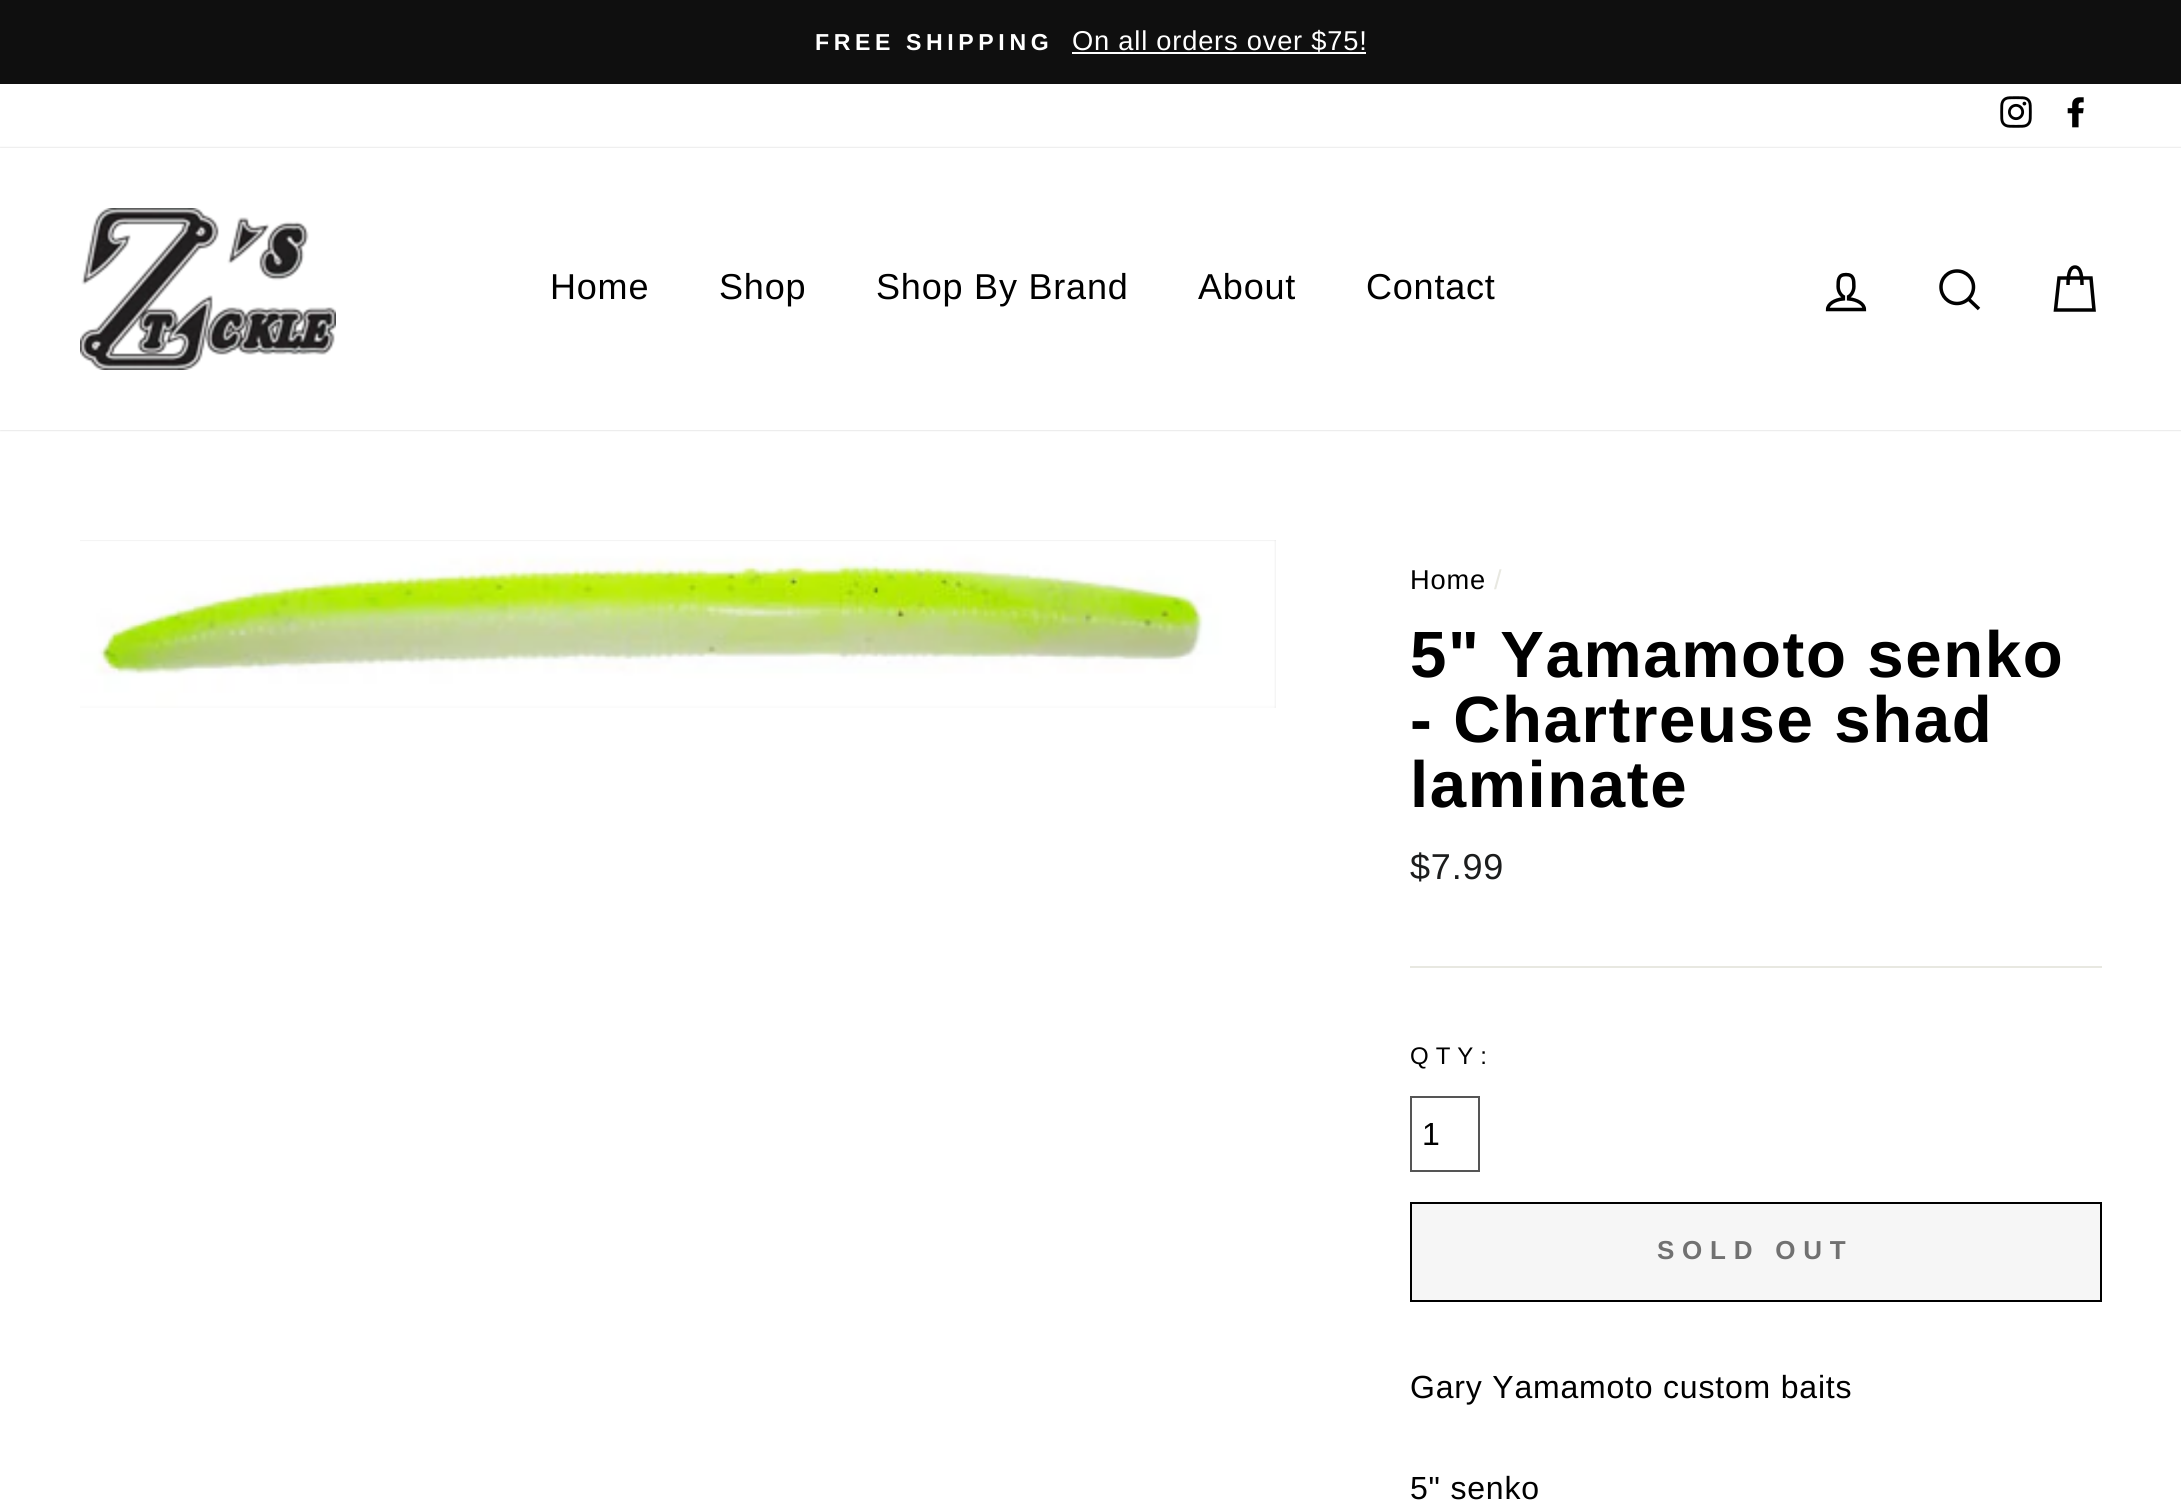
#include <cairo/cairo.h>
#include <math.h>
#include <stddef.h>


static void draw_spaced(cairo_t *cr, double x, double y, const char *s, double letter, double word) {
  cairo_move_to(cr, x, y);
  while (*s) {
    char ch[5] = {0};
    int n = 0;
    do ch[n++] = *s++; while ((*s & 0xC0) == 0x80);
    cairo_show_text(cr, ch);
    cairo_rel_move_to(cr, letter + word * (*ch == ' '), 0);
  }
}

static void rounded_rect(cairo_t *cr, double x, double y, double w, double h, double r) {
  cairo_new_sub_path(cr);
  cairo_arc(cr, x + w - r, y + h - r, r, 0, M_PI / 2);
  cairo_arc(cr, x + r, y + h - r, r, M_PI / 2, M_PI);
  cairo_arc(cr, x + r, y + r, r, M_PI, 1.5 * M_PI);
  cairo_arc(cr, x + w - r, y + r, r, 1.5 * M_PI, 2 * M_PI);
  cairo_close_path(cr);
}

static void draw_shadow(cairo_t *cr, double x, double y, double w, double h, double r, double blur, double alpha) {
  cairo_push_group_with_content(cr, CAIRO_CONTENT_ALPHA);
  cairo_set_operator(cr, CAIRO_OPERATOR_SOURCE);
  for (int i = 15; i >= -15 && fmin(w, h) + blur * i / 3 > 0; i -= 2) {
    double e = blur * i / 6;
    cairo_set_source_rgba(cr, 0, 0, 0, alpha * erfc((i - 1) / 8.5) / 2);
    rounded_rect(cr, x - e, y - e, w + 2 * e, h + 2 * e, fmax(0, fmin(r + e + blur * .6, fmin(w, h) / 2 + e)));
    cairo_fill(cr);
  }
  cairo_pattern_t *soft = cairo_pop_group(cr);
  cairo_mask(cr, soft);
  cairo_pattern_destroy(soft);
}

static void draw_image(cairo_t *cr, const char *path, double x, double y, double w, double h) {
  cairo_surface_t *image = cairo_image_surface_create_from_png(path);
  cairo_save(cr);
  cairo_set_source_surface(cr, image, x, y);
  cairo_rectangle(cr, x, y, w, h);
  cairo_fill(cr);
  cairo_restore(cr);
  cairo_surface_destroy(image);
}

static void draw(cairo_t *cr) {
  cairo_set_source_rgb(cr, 1, 1, 1);
  cairo_paint(cr);
  cairo_set_source_rgb(cr, 15 / 255.0, 15 / 255.0, 15 / 255.0);
  cairo_rectangle(cr, 0, 0, 2181, 84);
  cairo_fill(cr);
  cairo_set_source_rgb(cr, 1, 1, 1);
  cairo_rectangle(cr, 1072, 52, 294, 2);
  cairo_fill(cr);
  draw_image(cr, "images/1.png", 2000, 96, 32, 32);
  draw_image(cr, "images/2.png", 2067, 97, 17, 31);
  cairo_save(cr);
  cairo_set_fill_rule(cr, CAIRO_FILL_RULE_EVEN_ODD);
  cairo_new_path(cr);
  cairo_move_to(cr, 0, 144);
  cairo_line_to(cr, 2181, 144);
  cairo_line_to(cr, 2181, 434);
  cairo_line_to(cr, 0, 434);
  cairo_close_path(cr);
  cairo_move_to(cr, 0, 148);
  cairo_line_to(cr, 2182, 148);
  cairo_line_to(cr, 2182, 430);
  cairo_line_to(cr, 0, 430);
  cairo_close_path(cr);
  cairo_clip(cr);
  cairo_set_source_rgb(cr, 0, 0, 0);
  draw_shadow(cr, 0, 148, 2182, 282, 0, 1, 0.2);
  cairo_restore(cr);
  draw_image(cr, "images/3.png", 80, 208, 256, 162);
  draw_image(cr, "images/4.png", 1825, 272, 42, 40);
  cairo_new_path(cr);
  cairo_move_to(cr, 1973.5, 287);
  cairo_curve_to(cr, 1973.5, 296, 1966, 303.5, 1957, 303.5);
  cairo_curve_to(cr, 1948, 303.5, 1941, 296, 1941, 287);
  cairo_curve_to(cr, 1941, 278, 1948, 271, 1957, 271);
  cairo_curve_to(cr, 1966, 271, 1973.5, 278, 1973.5, 287);
  cairo_close_path(cr);
  cairo_move_to(cr, 1979, 309);
  cairo_line_to(cr, 1968.5, 299);
  cairo_set_source_rgb(cr, 0, 0, 0);
  cairo_set_line_width(cr, 3.5);
  cairo_stroke(cr);
  cairo_new_path(cr);
  cairo_move_to(cr, 2068, 285);
  cairo_curve_to(cr, 2068, 271, 2071, 267, 2075, 267);
  cairo_curve_to(cr, 2079, 267, 2082, 271, 2082, 285);
  cairo_move_to(cr, 2059, 278);
  cairo_line_to(cr, 2091, 278);
  cairo_line_to(cr, 2094, 310);
  cairo_line_to(cr, 2055.5, 310);
  cairo_close_path(cr);
  cairo_stroke(cr);
  cairo_set_source_rgb(cr, 229 / 255.0, 229 / 255.0, 229 / 255.0);
  cairo_rectangle(cr, 80, 540, 1196, 168);
  cairo_fill(cr);
  draw_image(cr, "images/5.png", 80, 540, 1196, 168);
  cairo_set_source_rgb(cr, 232 / 255.0, 232 / 255.0, 225 / 255.0);
  cairo_rectangle(cr, 1410, 966, 692, 2);
  cairo_fill(cr);
  cairo_rectangle(cr, 1411, 1097, 68, 74);
  cairo_set_source_rgb(cr, 85 / 255.0, 85 / 255.0, 85 / 255.0);
  cairo_set_line_width(cr, 2);
  cairo_stroke(cr);
  cairo_set_source_rgb(cr, 246 / 255.0, 246 / 255.0, 246 / 255.0);
  cairo_rectangle(cr, 1411, 1203, 690, 98);
  cairo_fill_preserve(cr);
  cairo_set_source_rgb(cr, 0, 0, 0);
  cairo_stroke(cr);
  cairo_select_font_face(cr, "Arimo", CAIRO_FONT_SLANT_NORMAL, CAIRO_FONT_WEIGHT_BOLD);
  cairo_set_font_size(cr, 23.1);
  cairo_set_source_rgb(cr, 1, 1, 1);
  draw_spaced(cr, 815, 50, "FREE SHIPPING", 4.6, 0);
  cairo_select_font_face(cr, "Arimo", CAIRO_FONT_SLANT_NORMAL, CAIRO_FONT_WEIGHT_NORMAL);
  cairo_set_font_size(cr, 27.25);
  draw_spaced(cr, 1072, 50, "On all orders over $75!", 0.8, 0);
  cairo_set_font_size(cr, 36);
  cairo_set_source_rgb(cr, 0, 0, 0);
  draw_spaced(cr, 550, 299, "Home", 0.8, 0);
  draw_spaced(cr, 719, 299, "Shop", 0.8, 0);
  draw_spaced(cr, 876, 299, "Shop By Brand", 0.8, 0);
  draw_spaced(cr, 1198, 299, "About", 0.8, 0);
  draw_spaced(cr, 1366, 299, "Contact", 0.8, 0);
  cairo_set_font_size(cr, 27.25);
  draw_spaced(cr, 1410, 589, "Home", 0.8, 0);
  cairo_set_source_rgb(cr, 232 / 255.0, 232 / 255.0, 225 / 255.0);
  draw_spaced(cr, 1494, 589, "/", 0.8, 0);
  cairo_select_font_face(cr, "Arimo", CAIRO_FONT_SLANT_NORMAL, CAIRO_FONT_WEIGHT_BOLD);
  cairo_set_font_size(cr, 65.4);
  cairo_set_source_rgb(cr, 0, 0, 0);
  draw_spaced(cr, 1410, 677, "5\" Yamamoto senko", 1.6, 0);
  draw_spaced(cr, 1410, 742, "- Chartreuse shad", 1.6, 0);
  draw_spaced(cr, 1410, 807, "laminate", 1.6, 0);
  cairo_select_font_face(cr, "Arimo", CAIRO_FONT_SLANT_NORMAL, CAIRO_FONT_WEIGHT_NORMAL);
  cairo_set_font_size(cr, 36);
  cairo_set_source_rgb(cr, 28 / 255.0, 29 / 255.0, 29 / 255.0);
  draw_spaced(cr, 1410, 879, "$7.99", 0.8, 0);
  cairo_set_font_size(cr, 24);
  cairo_set_source_rgb(cr, 0, 0, 0);
  draw_spaced(cr, 1410, 1064, "QTY:", 7, 0);
  cairo_set_font_size(cr, 32);
  draw_spaced(cr, 1422, 1145, "1", 0.8, 0);
  cairo_select_font_face(cr, "Arimo", CAIRO_FONT_SLANT_NORMAL, CAIRO_FONT_WEIGHT_BOLD);
  cairo_set_font_size(cr, 26);
  cairo_set_source_rgb(cr, 113 / 255.0, 113 / 255.0, 113 / 255.0);
  draw_spaced(cr, 1657, 1259, "SOLD OUT", 7.75, 0);
  cairo_select_font_face(cr, "Arimo", CAIRO_FONT_SLANT_NORMAL, CAIRO_FONT_WEIGHT_NORMAL);
  cairo_set_font_size(cr, 32);
  cairo_set_source_rgb(cr, 0, 0, 0);
  draw_spaced(cr, 1410, 1398, "Gary Yamamoto custom baits", 0.8, 0);
  draw_spaced(cr, 1410, 1499, "5\" senko", 0.8, 0);
}

int main(void) {
  cairo_surface_t *surface = cairo_image_surface_create(CAIRO_FORMAT_RGB24, 2181, 1504);
  cairo_t *cr = cairo_create(surface);
  cairo_font_options_t *options = cairo_font_options_create();
  cairo_font_options_set_hint_metrics(options, CAIRO_HINT_METRICS_OFF);
  cairo_font_options_set_hint_style(options, CAIRO_HINT_STYLE_NONE);
  cairo_set_font_options(cr, options);
  cairo_set_miter_limit(cr, 4);
  draw(cr);
  cairo_surface_write_to_png(surface, "out.png");
  cairo_font_options_destroy(options);
  cairo_destroy(cr);
  cairo_surface_destroy(surface);
  return 0;
}
